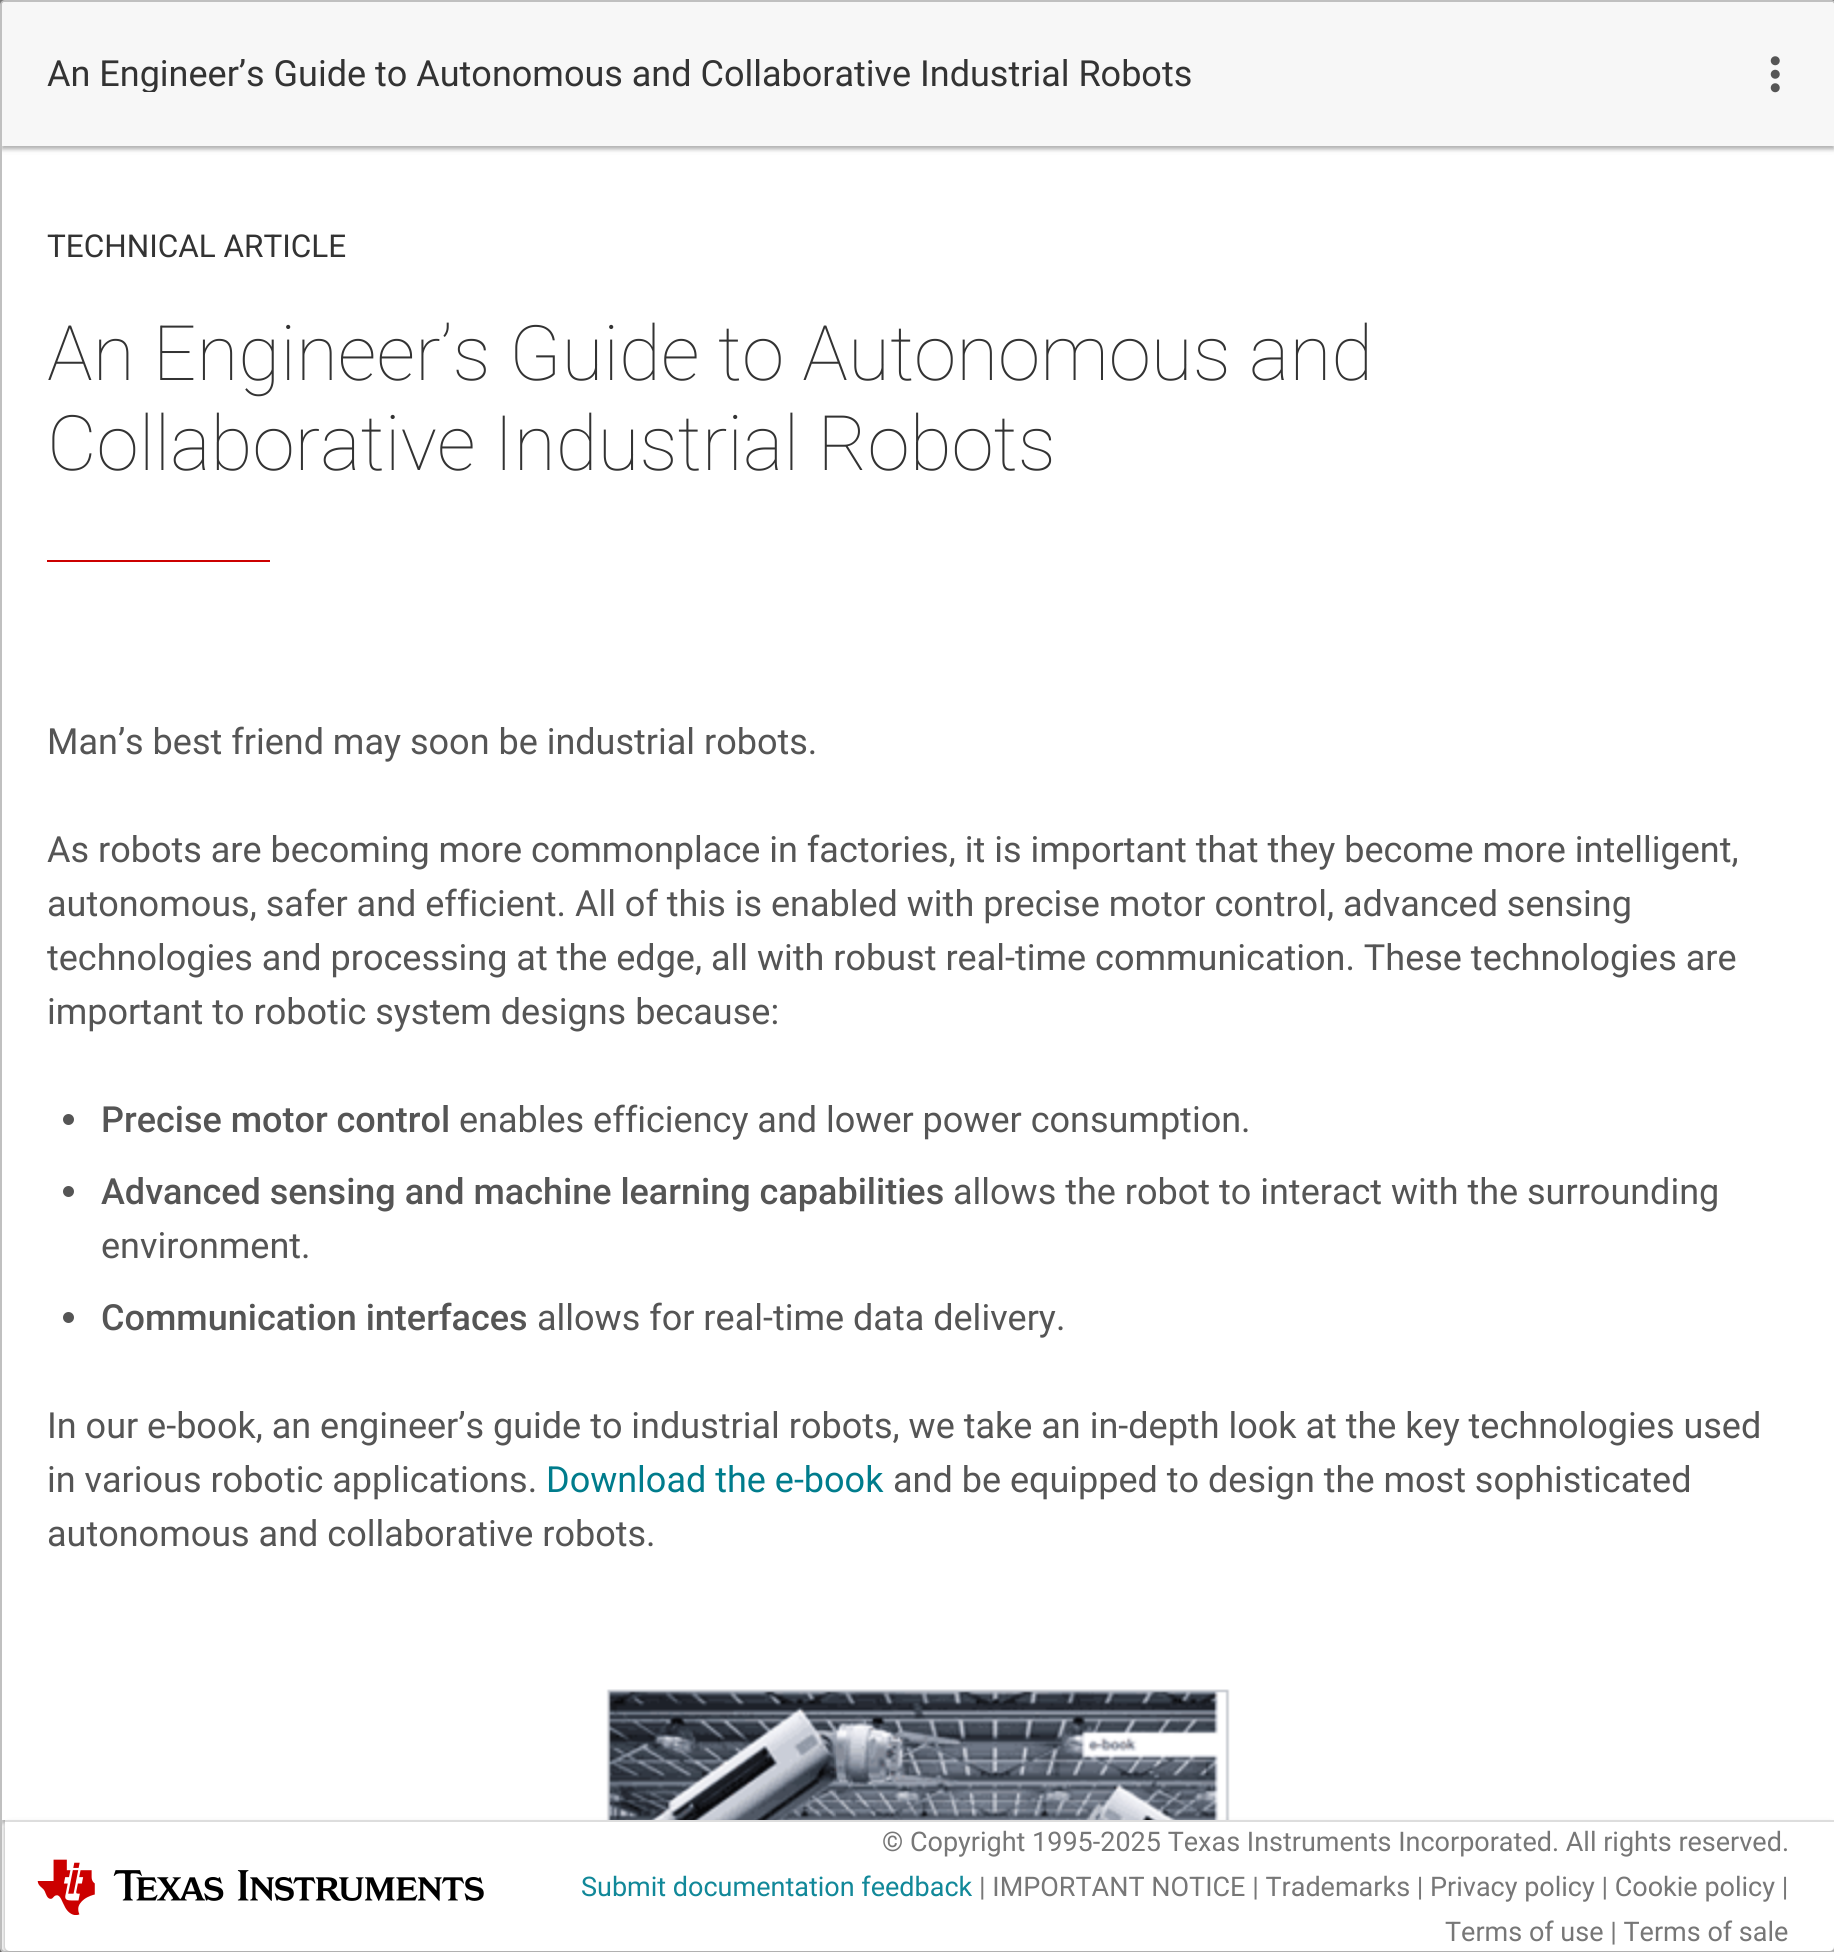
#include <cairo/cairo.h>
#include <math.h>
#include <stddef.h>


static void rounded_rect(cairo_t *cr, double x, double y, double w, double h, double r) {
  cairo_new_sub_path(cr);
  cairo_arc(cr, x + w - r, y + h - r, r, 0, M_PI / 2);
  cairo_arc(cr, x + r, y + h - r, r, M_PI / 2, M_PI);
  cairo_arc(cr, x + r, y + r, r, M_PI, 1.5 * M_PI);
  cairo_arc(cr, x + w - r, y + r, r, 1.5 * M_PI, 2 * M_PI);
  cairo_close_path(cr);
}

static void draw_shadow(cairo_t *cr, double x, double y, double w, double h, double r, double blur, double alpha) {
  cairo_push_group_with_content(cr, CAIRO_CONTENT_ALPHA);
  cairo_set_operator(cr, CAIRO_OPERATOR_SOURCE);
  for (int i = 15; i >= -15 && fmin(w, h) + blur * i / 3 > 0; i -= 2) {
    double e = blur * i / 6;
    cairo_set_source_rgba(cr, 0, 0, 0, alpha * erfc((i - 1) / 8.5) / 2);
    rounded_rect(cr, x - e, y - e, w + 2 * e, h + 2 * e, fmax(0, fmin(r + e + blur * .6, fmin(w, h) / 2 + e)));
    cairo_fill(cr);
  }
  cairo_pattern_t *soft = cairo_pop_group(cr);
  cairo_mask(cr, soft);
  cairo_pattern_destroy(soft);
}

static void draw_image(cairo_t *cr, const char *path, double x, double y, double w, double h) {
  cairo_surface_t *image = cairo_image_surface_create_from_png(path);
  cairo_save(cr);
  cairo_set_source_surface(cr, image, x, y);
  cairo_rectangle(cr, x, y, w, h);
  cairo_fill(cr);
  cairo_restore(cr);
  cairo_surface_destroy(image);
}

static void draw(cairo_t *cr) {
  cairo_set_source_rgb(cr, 128 / 255.0, 128 / 255.0, 128 / 255.0);
  cairo_paint(cr);
  cairo_set_source_rgb(cr, 0, 0, 0);
  draw_shadow(cr, 0, 38, 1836, 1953, 5, 56, 0.19);
  draw_shadow(cr, 0, 27, 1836, 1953, 5, 17, 0.24);
  cairo_set_source_rgb(cr, 250 / 255.0, 250 / 255.0, 250 / 255.0);
  rounded_rect(cr, 1, 1, 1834, 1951, 4);
  cairo_fill_preserve(cr);
  cairo_set_source_rgb(cr, 192 / 255.0, 192 / 255.0, 192 / 255.0);
  cairo_stroke(cr);
  cairo_save(cr);
  cairo_rectangle(cr, 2, 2, 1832, 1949);
  cairo_clip(cr);
  cairo_set_source_rgb(cr, 0, 0, 0);
  draw_shadow(cr, 2, 149, 1832, 1674, 0, 2, 0.24);
  draw_shadow(cr, 2, 149, 1832, 1674, 0, 3.5, 0.12);
  cairo_restore(cr);
  cairo_set_source_rgb(cr, 1, 1, 1);
  cairo_rectangle(cr, 2, 146, 1832, 1674);
  cairo_fill(cr);
  cairo_save(cr);
  cairo_rectangle(cr, 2, 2, 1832, 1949);
  cairo_clip(cr);
  cairo_set_source_rgb(cr, 0, 0, 0);
  draw_shadow(cr, 2, 5, 1832, 144, 0, 2, 0.24);
  draw_shadow(cr, 2, 5, 1832, 144, 0, 3.5, 0.12);
  cairo_restore(cr);
  cairo_set_source_rgb(cr, 247 / 255.0, 247 / 255.0, 247 / 255.0);
  cairo_new_path(cr);
  cairo_move_to(cr, 4, 2);
  cairo_line_to(cr, 1832, 2);
  cairo_curve_to(cr, 1833, 2, 1834, 3, 1834, 4);
  cairo_line_to(cr, 1834, 146);
  cairo_line_to(cr, 2, 146);
  cairo_line_to(cr, 2, 4);
  cairo_curve_to(cr, 2, 3, 3, 2, 4, 2);
  cairo_close_path(cr);
  cairo_fill(cr);
  draw_image(cr, "images/1.png", 1770, 56, 10, 37);
  cairo_set_source_rgb(cr, 204 / 255.0, 0, 0);
  cairo_rectangle(cr, 47, 560, 223, 2);
  cairo_fill(cr);
  cairo_set_source_rgb(cr, 85 / 255.0, 85 / 255.0, 85 / 255.0);
  cairo_arc(cr, 68.5, 1119.5, 5.5, 0, 2 * M_PI);
  cairo_fill(cr);
  cairo_arc(cr, 68.5, 1191.5, 5.5, 0, 2 * M_PI);
  cairo_fill(cr);
  cairo_arc(cr, 68.5, 1317.5, 5.5, 0, 2 * M_PI);
  cairo_fill(cr);
  draw_image(cr, "images/2.png", 606, 1689, 624, 131);
  cairo_save(cr);
  cairo_rectangle(cr, 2, 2, 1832, 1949);
  cairo_clip(cr);
  cairo_set_source_rgb(cr, 0, 0, 0);
  draw_shadow(cr, 5, 1823, 1829, 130, 5, 2, 0.24);
  cairo_restore(cr);
  cairo_save(cr);
  cairo_set_fill_rule(cr, CAIRO_FILL_RULE_EVEN_ODD);
  cairo_new_path(cr);
  cairo_move_to(cr, 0, 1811);
  cairo_line_to(cr, 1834, 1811);
  cairo_line_to(cr, 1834, 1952);
  cairo_line_to(cr, 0, 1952);
  cairo_close_path(cr);
  cairo_move_to(cr, 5, 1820);
  cairo_line_to(cr, 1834, 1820);
  cairo_line_to(cr, 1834, 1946);
  cairo_curve_to(cr, 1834, 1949, 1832, 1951, 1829, 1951);
  cairo_line_to(cr, 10, 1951);
  cairo_curve_to(cr, 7, 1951, 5, 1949, 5, 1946);
  cairo_close_path(cr);
  cairo_clip(cr);
  cairo_set_source_rgb(cr, 0, 0, 0);
  draw_shadow(cr, 5, 1823, 1829, 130, 5, 3.5, 0.12);
  cairo_restore(cr);
  cairo_set_source_rgb(cr, 1, 1, 1);
  cairo_new_path(cr);
  cairo_move_to(cr, 5, 1820);
  cairo_line_to(cr, 1834, 1820);
  cairo_line_to(cr, 1834, 1946);
  cairo_curve_to(cr, 1834, 1949, 1832, 1951, 1829, 1951);
  cairo_line_to(cr, 10, 1951);
  cairo_curve_to(cr, 7, 1951, 5, 1949, 5, 1946);
  cairo_close_path(cr);
  cairo_fill(cr);
  cairo_set_source_rgb(cr, 221 / 255.0, 221 / 255.0, 221 / 255.0);
  cairo_rectangle(cr, 5, 1820, 1829, 2);
  cairo_fill(cr);
  draw_image(cr, "images/3.png", 37, 1859, 447, 56);
  cairo_save(cr);
  cairo_rectangle(cr, 47, 56, 1146, 36);
  cairo_clip(cr);
  cairo_select_font_face(cr, "Roboto", CAIRO_FONT_SLANT_NORMAL, CAIRO_FONT_WEIGHT_NORMAL);
  cairo_set_font_size(cr, 36);
  cairo_set_source_rgb(cr, 51 / 255.0, 51 / 255.0, 51 / 255.0);
  cairo_move_to(cr, 47, 86);
  cairo_show_text(cr, "An Engineer’s Guide to Autonomous and Collaborative Industrial Robots");
  cairo_restore(cr);
  cairo_select_font_face(cr, "Roboto", CAIRO_FONT_SLANT_NORMAL, CAIRO_FONT_WEIGHT_NORMAL);
  cairo_set_font_size(cr, 31.5);
  cairo_set_source_rgb(cr, 51 / 255.0, 51 / 255.0, 51 / 255.0);
  cairo_move_to(cr, 47, 257);
  cairo_show_text(cr, "TECHNICAL ARTICLE");
  cairo_select_font_face(cr, "Roboto Thin", CAIRO_FONT_SLANT_NORMAL, CAIRO_FONT_WEIGHT_NORMAL);
  cairo_set_font_size(cr, 76.5);
  cairo_move_to(cr, 47, 380);
  cairo_show_text(cr, "An Engineer’s Guide to Autonomous and");
  cairo_move_to(cr, 47, 470);
  cairo_show_text(cr, "Collaborative Industrial Robots");
  cairo_select_font_face(cr, "Roboto", CAIRO_FONT_SLANT_NORMAL, CAIRO_FONT_WEIGHT_NORMAL);
  cairo_set_font_size(cr, 36);
  cairo_set_source_rgb(cr, 85 / 255.0, 85 / 255.0, 85 / 255.0);
  cairo_move_to(cr, 47, 754);
  cairo_show_text(cr, "Man’s best friend may soon be industrial robots.");
  cairo_move_to(cr, 47, 862);
  cairo_show_text(cr, "As robots are becoming more commonplace in factories, it is important that they become more intelligent,");
  cairo_move_to(cr, 47, 916);
  cairo_show_text(cr, "autonomous, safer and efficient. All of this is enabled with precise motor control, advanced sensing");
  cairo_move_to(cr, 47, 970);
  cairo_show_text(cr, "technologies and processing at the edge, all with robust real-time communication. These technologies are");
  cairo_move_to(cr, 47, 1024);
  cairo_show_text(cr, "important to robotic system designs because:");
  cairo_select_font_face(cr, "Roboto Medium", CAIRO_FONT_SLANT_NORMAL, CAIRO_FONT_WEIGHT_NORMAL);
  cairo_move_to(cr, 101, 1132);
  cairo_show_text(cr, "Precise motor control");
  cairo_select_font_face(cr, "Roboto", CAIRO_FONT_SLANT_NORMAL, CAIRO_FONT_WEIGHT_NORMAL);
  cairo_move_to(cr, 459, 1132);
  cairo_show_text(cr, "enables efficiency and lower power consumption.");
  cairo_select_font_face(cr, "Roboto Medium", CAIRO_FONT_SLANT_NORMAL, CAIRO_FONT_WEIGHT_NORMAL);
  cairo_move_to(cr, 101, 1204);
  cairo_show_text(cr, "Advanced sensing and machine learning capabilities");
  cairo_select_font_face(cr, "Roboto", CAIRO_FONT_SLANT_NORMAL, CAIRO_FONT_WEIGHT_NORMAL);
  cairo_move_to(cr, 953, 1204);
  cairo_show_text(cr, "allows the robot to interact with the surrounding");
  cairo_move_to(cr, 101, 1258);
  cairo_show_text(cr, "environment.");
  cairo_select_font_face(cr, "Roboto Medium", CAIRO_FONT_SLANT_NORMAL, CAIRO_FONT_WEIGHT_NORMAL);
  cairo_move_to(cr, 101, 1330);
  cairo_show_text(cr, "Communication interfaces");
  cairo_select_font_face(cr, "Roboto", CAIRO_FONT_SLANT_NORMAL, CAIRO_FONT_WEIGHT_NORMAL);
  cairo_move_to(cr, 537, 1330);
  cairo_show_text(cr, "allows for real-time data delivery.");
  cairo_move_to(cr, 47, 1438);
  cairo_show_text(cr, "In our e-book, an engineer’s guide to industrial robots, we take an in-depth look at the key technologies used");
  cairo_move_to(cr, 47, 1492);
  cairo_show_text(cr, "in various robotic applications.");
  cairo_set_source_rgb(cr, 0, 124 / 255.0, 140 / 255.0);
  cairo_move_to(cr, 546, 1492);
  cairo_show_text(cr, "Download the e-book");
  cairo_set_source_rgb(cr, 85 / 255.0, 85 / 255.0, 85 / 255.0);
  cairo_move_to(cr, 893, 1492);
  cairo_show_text(cr, "and be equipped to design the most sophisticated");
  cairo_move_to(cr, 47, 1546);
  cairo_show_text(cr, "autonomous and collaborative robots.");
  cairo_set_font_size(cr, 27);
  cairo_set_source_rgb(cr, 119 / 255.0, 119 / 255.0, 119 / 255.0);
  cairo_move_to(cr, 882, 1851);
  cairo_show_text(cr, "© Copyright 1995-2025 Texas Instruments Incorporated. All rights reserved.");
  cairo_set_source_rgb(cr, 17 / 255.0, 136 / 255.0, 153 / 255.0);
  cairo_move_to(cr, 581, 1896);
  cairo_show_text(cr, "Submit documentation feedback");
  cairo_set_source_rgb(cr, 119 / 255.0, 119 / 255.0, 119 / 255.0);
  cairo_move_to(cr, 979, 1896);
  cairo_show_text(cr, "| IMPORTANT NOTICE | Trademarks | Privacy policy | Cookie policy |");
  cairo_move_to(cr, 1445, 1941);
  cairo_show_text(cr, "Terms of use | Terms of sale");
}

int main(void) {
  cairo_surface_t *surface = cairo_image_surface_create(CAIRO_FORMAT_RGB24, 1834, 1952);
  cairo_t *cr = cairo_create(surface);
  cairo_font_options_t *options = cairo_font_options_create();
  cairo_font_options_set_hint_metrics(options, CAIRO_HINT_METRICS_OFF);
  cairo_font_options_set_hint_style(options, CAIRO_HINT_STYLE_NONE);
  cairo_set_font_options(cr, options);
  cairo_set_miter_limit(cr, 4);
  draw(cr);
  cairo_surface_write_to_png(surface, "out.png");
  cairo_font_options_destroy(options);
  cairo_destroy(cr);
  cairo_surface_destroy(surface);
  return 0;
}
